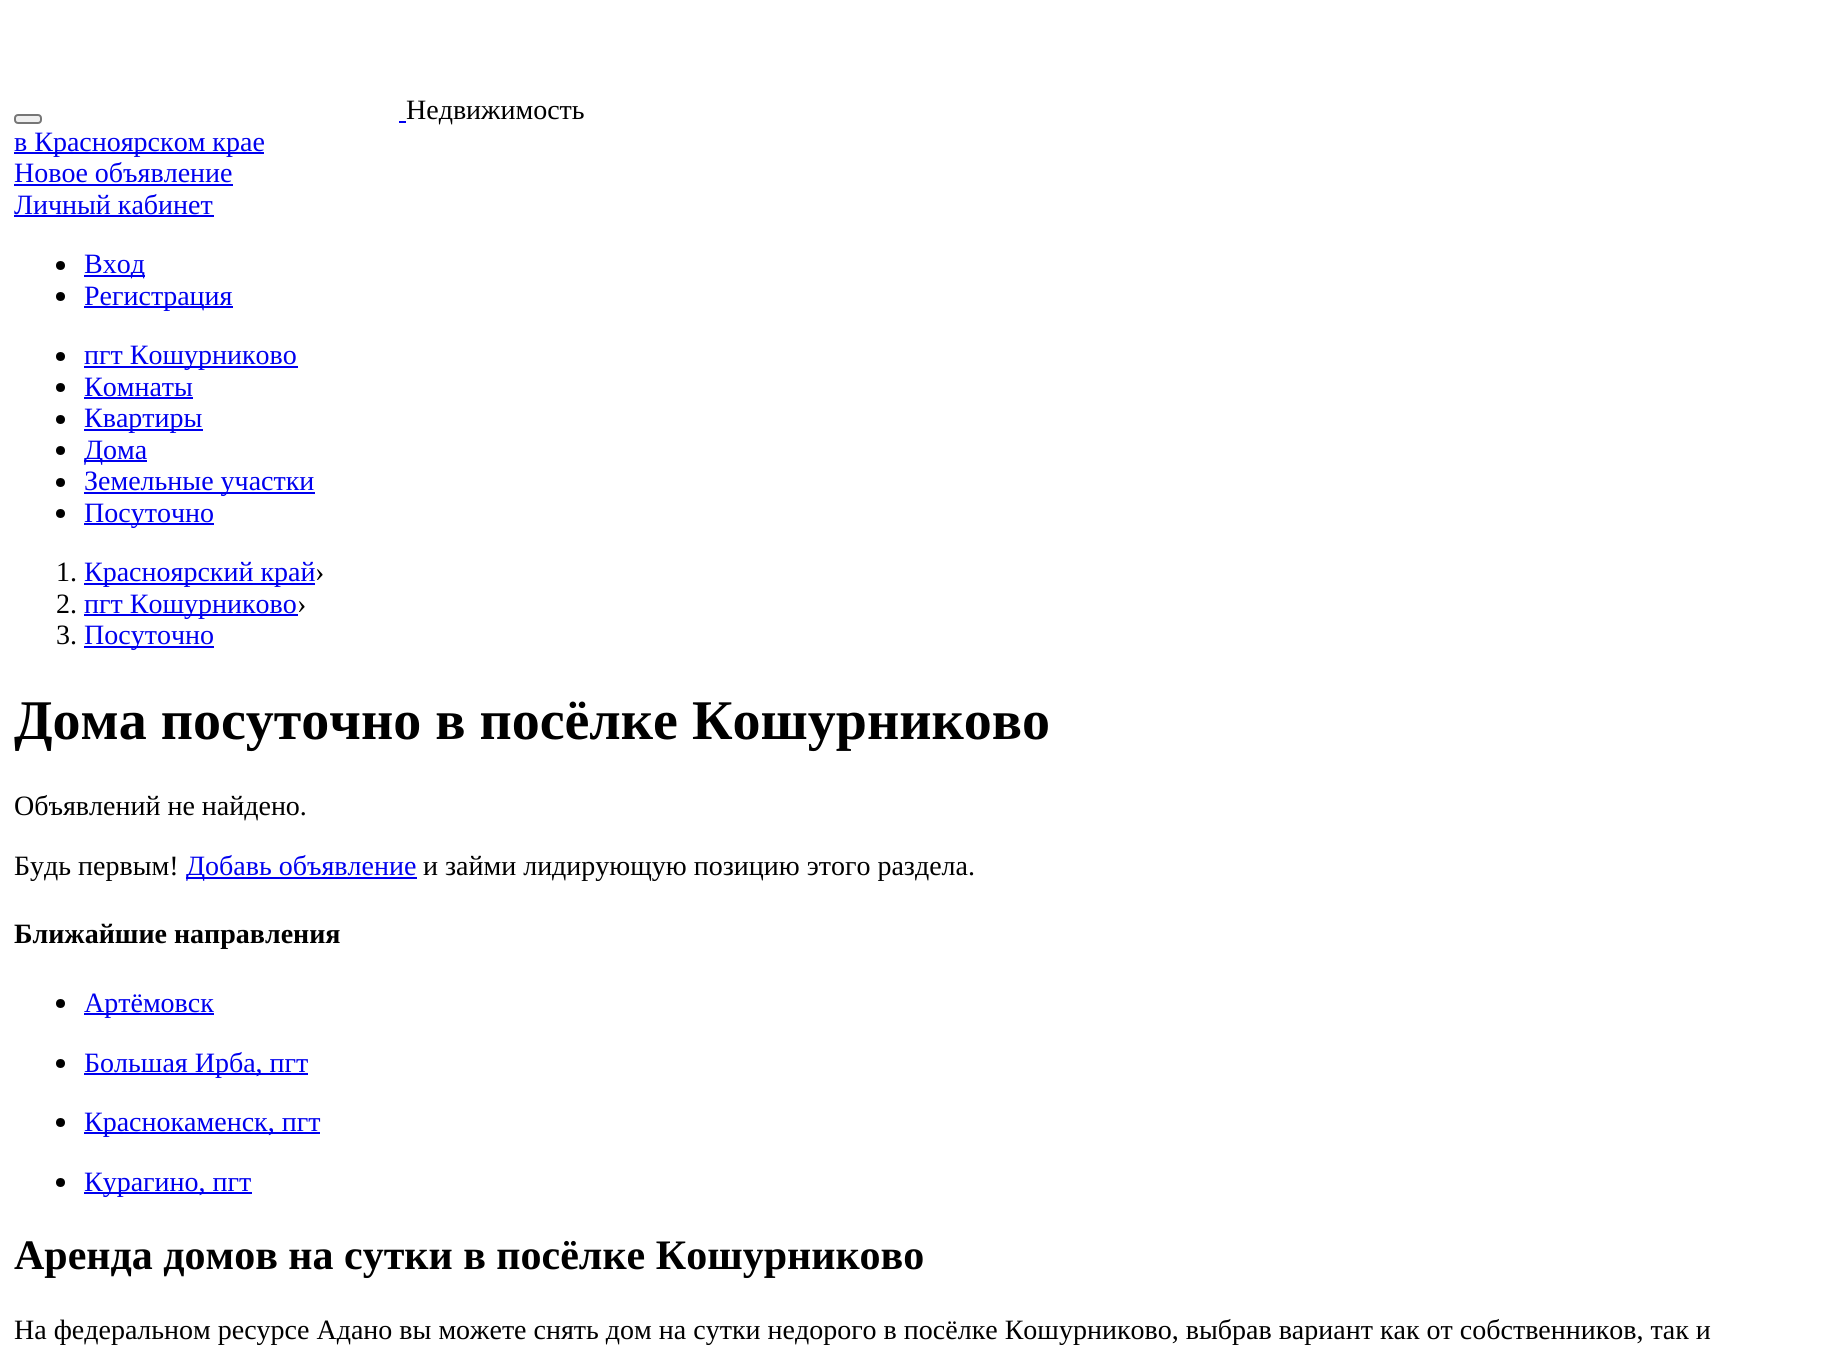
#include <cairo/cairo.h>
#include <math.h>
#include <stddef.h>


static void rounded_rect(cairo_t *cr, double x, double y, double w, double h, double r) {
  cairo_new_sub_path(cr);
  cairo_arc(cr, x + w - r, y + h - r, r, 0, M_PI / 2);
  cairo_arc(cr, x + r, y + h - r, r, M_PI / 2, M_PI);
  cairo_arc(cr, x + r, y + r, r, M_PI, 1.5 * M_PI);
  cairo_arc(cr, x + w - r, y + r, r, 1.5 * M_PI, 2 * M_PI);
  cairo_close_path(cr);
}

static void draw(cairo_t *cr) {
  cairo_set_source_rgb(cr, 1, 1, 1);
  cairo_paint(cr);
  cairo_set_source_rgb(cr, 239 / 255.0, 239 / 255.0, 239 / 255.0);
  rounded_rect(cr, 15, 115, 26, 8, 3);
  cairo_fill_preserve(cr);
  cairo_set_source_rgb(cr, 118 / 255.0, 118 / 255.0, 118 / 255.0);
  cairo_stroke(cr);
  cairo_set_source_rgb(cr, 0, 0, 238 / 255.0);
  cairo_rectangle(cr, 399, 121, 7, 2);
  cairo_fill(cr);
  cairo_rectangle(cr, 14, 152, 250, 2);
  cairo_fill(cr);
  cairo_rectangle(cr, 14, 184, 219, 2);
  cairo_fill(cr);
  cairo_rectangle(cr, 14, 215, 200, 2);
  cairo_fill(cr);
  cairo_set_source_rgb(cr, 0, 0, 0);
  cairo_arc(cr, 60.5, 265.5, 4.5, 0, 2 * M_PI);
  cairo_fill(cr);
  cairo_set_source_rgb(cr, 0, 0, 238 / 255.0);
  cairo_rectangle(cr, 84, 275, 61, 2);
  cairo_fill(cr);
  cairo_set_source_rgb(cr, 0, 0, 0);
  cairo_arc(cr, 60.5, 296.5, 4.5, 0, 2 * M_PI);
  cairo_fill(cr);
  cairo_set_source_rgb(cr, 0, 0, 238 / 255.0);
  cairo_rectangle(cr, 84, 306, 149, 2);
  cairo_fill(cr);
  cairo_set_source_rgb(cr, 0, 0, 0);
  cairo_arc(cr, 60.5, 356.5, 4.5, 0, 2 * M_PI);
  cairo_fill(cr);
  cairo_set_source_rgb(cr, 0, 0, 238 / 255.0);
  cairo_rectangle(cr, 84, 366, 214, 2);
  cairo_fill(cr);
  cairo_set_source_rgb(cr, 0, 0, 0);
  cairo_arc(cr, 60.5, 387.5, 4.5, 0, 2 * M_PI);
  cairo_fill(cr);
  cairo_set_source_rgb(cr, 0, 0, 238 / 255.0);
  cairo_rectangle(cr, 84, 397, 109, 2);
  cairo_fill(cr);
  cairo_set_source_rgb(cr, 0, 0, 0);
  cairo_arc(cr, 60.5, 419.5, 4.5, 0, 2 * M_PI);
  cairo_fill(cr);
  cairo_set_source_rgb(cr, 0, 0, 238 / 255.0);
  cairo_rectangle(cr, 84, 429, 119, 2);
  cairo_fill(cr);
  cairo_set_source_rgb(cr, 0, 0, 0);
  cairo_arc(cr, 60.5, 450.5, 4.5, 0, 2 * M_PI);
  cairo_fill(cr);
  cairo_set_source_rgb(cr, 0, 0, 238 / 255.0);
  cairo_rectangle(cr, 84, 460, 63, 2);
  cairo_fill(cr);
  cairo_set_source_rgb(cr, 0, 0, 0);
  cairo_arc(cr, 60.5, 482.5, 4.5, 0, 2 * M_PI);
  cairo_fill(cr);
  cairo_set_source_rgb(cr, 0, 0, 238 / 255.0);
  cairo_rectangle(cr, 84, 492, 231, 2);
  cairo_fill(cr);
  cairo_set_source_rgb(cr, 0, 0, 0);
  cairo_arc(cr, 60.5, 513.5, 4.5, 0, 2 * M_PI);
  cairo_fill(cr);
  cairo_set_source_rgb(cr, 0, 0, 238 / 255.0);
  cairo_rectangle(cr, 84, 523, 130, 2);
  cairo_fill(cr);
  cairo_rectangle(cr, 84, 583, 231, 2);
  cairo_fill(cr);
  cairo_rectangle(cr, 84, 614, 214, 2);
  cairo_fill(cr);
  cairo_rectangle(cr, 84, 646, 130, 2);
  cairo_fill(cr);
  cairo_rectangle(cr, 186, 877, 231, 2);
  cairo_fill(cr);
  cairo_set_source_rgb(cr, 0, 0, 0);
  cairo_arc(cr, 60.5, 1003.5, 4.5, 0, 2 * M_PI);
  cairo_fill(cr);
  cairo_set_source_rgb(cr, 0, 0, 238 / 255.0);
  cairo_rectangle(cr, 84, 1013, 130, 2);
  cairo_fill(cr);
  cairo_set_source_rgb(cr, 0, 0, 0);
  cairo_arc(cr, 60.5, 1063.5, 4.5, 0, 2 * M_PI);
  cairo_fill(cr);
  cairo_set_source_rgb(cr, 0, 0, 238 / 255.0);
  cairo_rectangle(cr, 84, 1073, 224, 2);
  cairo_fill(cr);
  cairo_set_source_rgb(cr, 0, 0, 0);
  cairo_arc(cr, 60.5, 1122.5, 4.5, 0, 2 * M_PI);
  cairo_fill(cr);
  cairo_set_source_rgb(cr, 0, 0, 238 / 255.0);
  cairo_rectangle(cr, 84, 1132, 236, 2);
  cairo_fill(cr);
  cairo_set_source_rgb(cr, 0, 0, 0);
  cairo_arc(cr, 60.5, 1182.5, 4.5, 0, 2 * M_PI);
  cairo_fill(cr);
  cairo_set_source_rgb(cr, 0, 0, 238 / 255.0);
  cairo_rectangle(cr, 84, 1192, 168, 2);
  cairo_fill(cr);
  cairo_select_font_face(cr, "Liberation Serif", CAIRO_FONT_SLANT_NORMAL, CAIRO_FONT_WEIGHT_NORMAL);
  cairo_set_font_size(cr, 28);
  cairo_set_source_rgb(cr, 0, 0, 0);
  cairo_move_to(cr, 406, 119);
  cairo_show_text(cr, "Недвижимость");
  cairo_set_source_rgb(cr, 0, 0, 238 / 255.0);
  cairo_move_to(cr, 14, 151);
  cairo_show_text(cr, "в Красноярском крае");
  cairo_move_to(cr, 14, 182);
  cairo_show_text(cr, "Новое объявление");
  cairo_move_to(cr, 14, 214);
  cairo_show_text(cr, "Личный кабинет");
  cairo_move_to(cr, 84, 273);
  cairo_show_text(cr, "Вход");
  cairo_move_to(cr, 84, 305);
  cairo_show_text(cr, "Регистрация");
  cairo_move_to(cr, 84, 364);
  cairo_show_text(cr, "пгт Кошурниково");
  cairo_move_to(cr, 84, 396);
  cairo_show_text(cr, "Комнаты");
  cairo_move_to(cr, 84, 427);
  cairo_show_text(cr, "Квартиры");
  cairo_move_to(cr, 84, 459);
  cairo_show_text(cr, "Дома");
  cairo_move_to(cr, 84, 490);
  cairo_show_text(cr, "Земельные участки");
  cairo_move_to(cr, 84, 522);
  cairo_show_text(cr, "Посуточно");
  cairo_set_source_rgb(cr, 0, 0, 0);
  cairo_move_to(cr, 56, 581);
  cairo_show_text(cr, "1.");
  cairo_set_source_rgb(cr, 0, 0, 238 / 255.0);
  cairo_move_to(cr, 84, 581);
  cairo_show_text(cr, "Красноярский край");
  cairo_set_source_rgb(cr, 0, 0, 0);
  cairo_move_to(cr, 315, 581);
  cairo_show_text(cr, "›");
  cairo_move_to(cr, 56, 613);
  cairo_show_text(cr, "2.");
  cairo_set_source_rgb(cr, 0, 0, 238 / 255.0);
  cairo_move_to(cr, 84, 613);
  cairo_show_text(cr, "пгт Кошурниково");
  cairo_set_source_rgb(cr, 0, 0, 0);
  cairo_move_to(cr, 297, 613);
  cairo_show_text(cr, "›");
  cairo_move_to(cr, 56, 644);
  cairo_show_text(cr, "3.");
  cairo_set_source_rgb(cr, 0, 0, 238 / 255.0);
  cairo_move_to(cr, 84, 644);
  cairo_show_text(cr, "Посуточно");
  cairo_select_font_face(cr, "Liberation Serif", CAIRO_FONT_SLANT_NORMAL, CAIRO_FONT_WEIGHT_BOLD);
  cairo_set_font_size(cr, 56);
  cairo_set_source_rgb(cr, 0, 0, 0);
  cairo_move_to(cr, 14, 739);
  cairo_show_text(cr, "Дома посуточно в посёлке Кошурниково");
  cairo_select_font_face(cr, "Liberation Serif", CAIRO_FONT_SLANT_NORMAL, CAIRO_FONT_WEIGHT_NORMAL);
  cairo_set_font_size(cr, 28);
  cairo_move_to(cr, 14, 815);
  cairo_show_text(cr, "Объявлений не найдено.");
  cairo_move_to(cr, 14, 875);
  cairo_show_text(cr, "Будь первым!");
  cairo_set_source_rgb(cr, 0, 0, 238 / 255.0);
  cairo_move_to(cr, 186, 875);
  cairo_show_text(cr, "Добавь объявление");
  cairo_set_source_rgb(cr, 0, 0, 0);
  cairo_move_to(cr, 423, 875);
  cairo_show_text(cr, "и займи лидирующую позицию этого раздела.");
  cairo_select_font_face(cr, "Liberation Serif", CAIRO_FONT_SLANT_NORMAL, CAIRO_FONT_WEIGHT_BOLD);
  cairo_move_to(cr, 14, 943);
  cairo_show_text(cr, "Ближайшие направления");
  cairo_select_font_face(cr, "Liberation Serif", CAIRO_FONT_SLANT_NORMAL, CAIRO_FONT_WEIGHT_NORMAL);
  cairo_set_source_rgb(cr, 0, 0, 238 / 255.0);
  cairo_move_to(cr, 84, 1012);
  cairo_show_text(cr, "Артёмовск");
  cairo_move_to(cr, 84, 1072);
  cairo_show_text(cr, "Большая Ирба, пгт");
  cairo_move_to(cr, 84, 1131);
  cairo_show_text(cr, "Краснокаменск, пгт");
  cairo_move_to(cr, 84, 1191);
  cairo_show_text(cr, "Курагино, пгт");
  cairo_select_font_face(cr, "Liberation Serif", CAIRO_FONT_SLANT_NORMAL, CAIRO_FONT_WEIGHT_BOLD);
  cairo_set_font_size(cr, 42);
  cairo_set_source_rgb(cr, 0, 0, 0);
  cairo_move_to(cr, 14, 1269);
  cairo_show_text(cr, "Аренда домов на сутки в посёлке Кошурниково");
  cairo_select_font_face(cr, "Liberation Serif", CAIRO_FONT_SLANT_NORMAL, CAIRO_FONT_WEIGHT_NORMAL);
  cairo_set_font_size(cr, 28);
  cairo_move_to(cr, 14, 1339);
  cairo_show_text(cr, "На федеральном ресурсе Адано вы можете снять дом на сутки недорого в посёлке Кошурниково, выбрав вариант как от собственников, так и");
}

int main(void) {
  cairo_surface_t *surface = cairo_image_surface_create(CAIRO_FORMAT_RGB24, 1822, 1353);
  cairo_t *cr = cairo_create(surface);
  cairo_font_options_t *options = cairo_font_options_create();
  cairo_font_options_set_hint_metrics(options, CAIRO_HINT_METRICS_OFF);
  cairo_font_options_set_hint_style(options, CAIRO_HINT_STYLE_NONE);
  cairo_set_font_options(cr, options);
  cairo_set_miter_limit(cr, 4);
  draw(cr);
  cairo_surface_write_to_png(surface, "out.png");
  cairo_font_options_destroy(options);
  cairo_destroy(cr);
  cairo_surface_destroy(surface);
  return 0;
}
